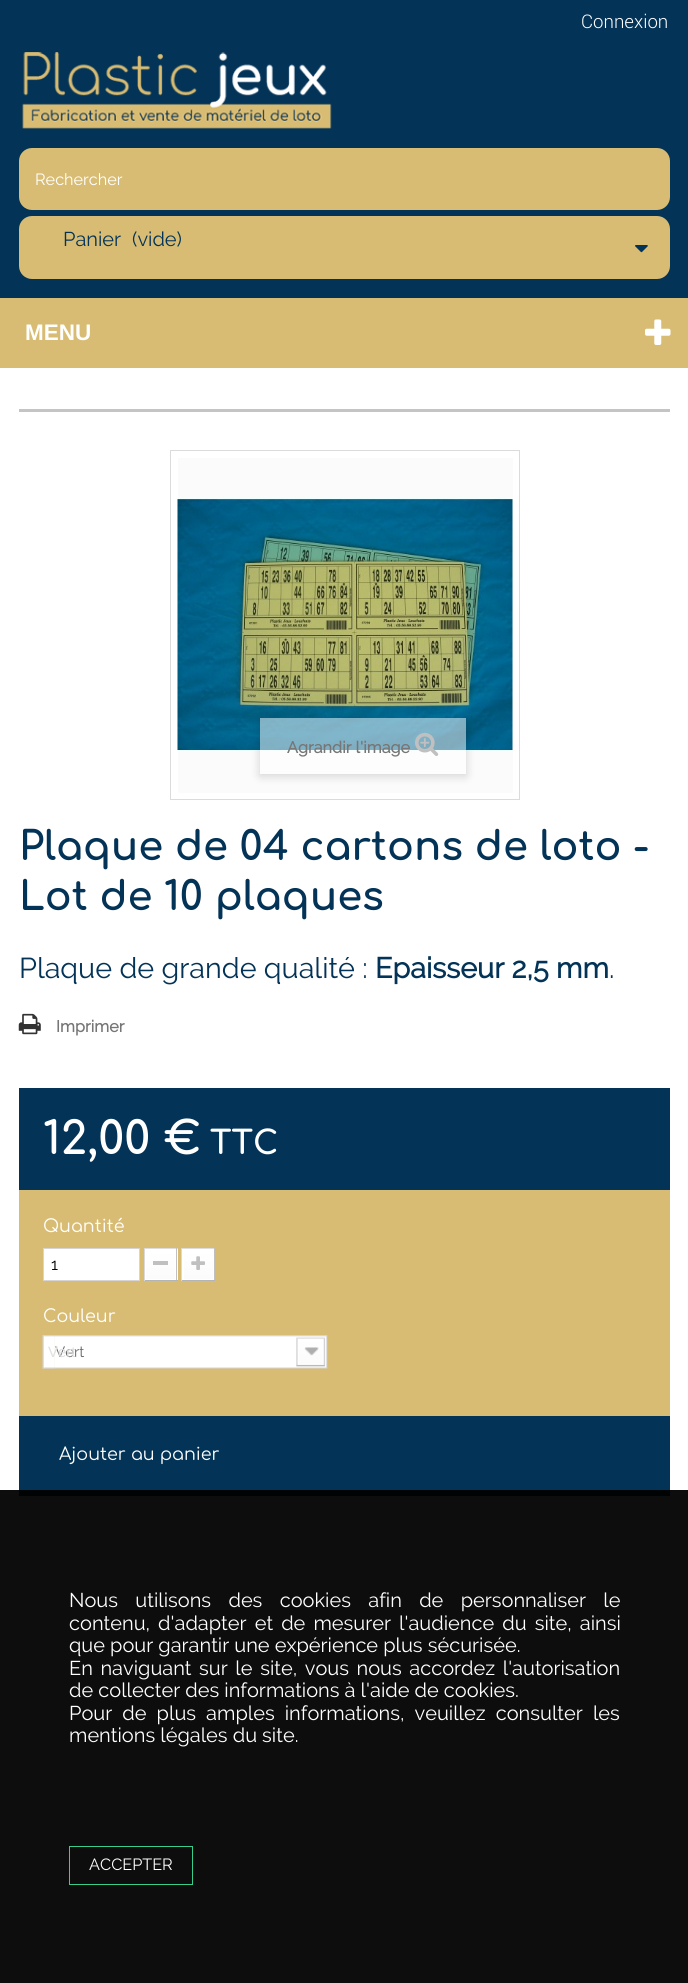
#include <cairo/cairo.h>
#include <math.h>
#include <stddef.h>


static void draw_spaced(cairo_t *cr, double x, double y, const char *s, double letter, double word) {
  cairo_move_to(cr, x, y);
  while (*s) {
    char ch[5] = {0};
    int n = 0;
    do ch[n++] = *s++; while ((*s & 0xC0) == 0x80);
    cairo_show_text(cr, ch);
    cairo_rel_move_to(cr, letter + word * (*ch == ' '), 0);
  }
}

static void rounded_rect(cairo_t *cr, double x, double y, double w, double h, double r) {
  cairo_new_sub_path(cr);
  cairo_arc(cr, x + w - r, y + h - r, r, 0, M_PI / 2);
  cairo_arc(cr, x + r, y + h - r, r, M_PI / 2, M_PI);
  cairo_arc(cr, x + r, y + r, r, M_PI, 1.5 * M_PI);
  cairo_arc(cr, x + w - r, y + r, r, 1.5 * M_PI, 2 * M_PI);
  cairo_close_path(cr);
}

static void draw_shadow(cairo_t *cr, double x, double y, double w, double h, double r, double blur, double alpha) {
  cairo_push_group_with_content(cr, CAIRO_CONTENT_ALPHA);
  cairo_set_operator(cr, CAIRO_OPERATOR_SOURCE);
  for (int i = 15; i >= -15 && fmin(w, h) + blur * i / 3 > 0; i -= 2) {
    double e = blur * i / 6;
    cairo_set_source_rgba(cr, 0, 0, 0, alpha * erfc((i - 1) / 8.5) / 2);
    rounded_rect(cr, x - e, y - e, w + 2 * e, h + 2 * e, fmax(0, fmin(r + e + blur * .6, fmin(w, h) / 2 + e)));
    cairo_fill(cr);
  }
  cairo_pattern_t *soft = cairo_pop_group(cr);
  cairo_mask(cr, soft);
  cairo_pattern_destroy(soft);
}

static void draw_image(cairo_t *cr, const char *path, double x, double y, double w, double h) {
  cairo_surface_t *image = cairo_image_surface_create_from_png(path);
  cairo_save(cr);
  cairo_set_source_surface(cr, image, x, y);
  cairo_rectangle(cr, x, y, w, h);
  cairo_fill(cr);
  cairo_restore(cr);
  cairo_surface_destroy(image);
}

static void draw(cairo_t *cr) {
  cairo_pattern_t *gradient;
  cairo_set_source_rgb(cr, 1, 1, 1);
  cairo_paint(cr);
  cairo_set_source_rgb(cr, 13 / 255.0, 13 / 255.0, 13 / 255.0);
  cairo_rectangle(cr, 0, 1490, 688, 493);
  cairo_fill(cr);
  cairo_set_source_rgb(cr, 3 / 255.0, 51 / 255.0, 87 / 255.0);
  cairo_rectangle(cr, 0, 0, 688, 298);
  cairo_fill(cr);
  draw_image(cr, "images/1.png", 22, 52, 310, 77);
  cairo_set_source_rgb(cr, 216 / 255.0, 188 / 255.0, 115 / 255.0);
  rounded_rect(cr, 19, 148, 651, 62, 13);
  cairo_fill(cr);
  rounded_rect(cr, 19, 216, 651, 63, 13);
  cairo_fill(cr);
  draw_image(cr, "images/2.png", 635, 245, 13, 8);
  cairo_rectangle(cr, 0, 298, 688, 70);
  cairo_fill(cr);
  draw_image(cr, "images/3.png", 645, 319, 26, 26);
  cairo_set_source_rgb(cr, 196 / 255.0, 196 / 255.0, 196 / 255.0);
  cairo_rectangle(cr, 19, 409, 651, 3);
  cairo_fill(cr);
  cairo_rectangle(cr, 170.5, 450.5, 349, 349);
  cairo_set_source_rgb(cr, 219 / 255.0, 219 / 255.0, 219 / 255.0);
  cairo_set_line_width(cr, 1);
  cairo_stroke(cr);
  cairo_set_source_rgb(cr, 251 / 255.0, 251 / 255.0, 251 / 255.0);
  cairo_rectangle(cr, 178, 458, 335, 335);
  cairo_fill(cr);
  draw_image(cr, "images/4.png", 177, 498, 336, 253);
  cairo_save(cr);
  cairo_set_fill_rule(cr, CAIRO_FILL_RULE_EVEN_ODD);
  cairo_new_path(cr);
  cairo_move_to(cr, 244, 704);
  cairo_line_to(cr, 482, 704);
  cairo_line_to(cr, 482, 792);
  cairo_line_to(cr, 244, 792);
  cairo_close_path(cr);
  cairo_move_to(cr, 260, 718);
  cairo_line_to(cr, 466, 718);
  cairo_line_to(cr, 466, 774);
  cairo_line_to(cr, 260, 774);
  cairo_close_path(cr);
  cairo_clip(cr);
  cairo_set_source_rgb(cr, 0, 0, 0);
  draw_shadow(cr, 260, 720, 206, 56, 0, 5, 0.16);
  cairo_restore(cr);
  cairo_set_source_rgba(cr, 1, 1, 1, 0.5);
  cairo_rectangle(cr, 260, 718, 206, 56);
  cairo_fill(cr);
  draw_image(cr, "images/5.png", 415, 732, 24, 24);
  draw_image(cr, "images/6.png", 18, 1013, 23, 22);
  cairo_set_source_rgb(cr, 3 / 255.0, 51 / 255.0, 87 / 255.0);
  cairo_rectangle(cr, 19, 1088, 651, 102);
  cairo_fill(cr);
  cairo_set_source_rgb(cr, 216 / 255.0, 188 / 255.0, 115 / 255.0);
  cairo_rectangle(cr, 19, 1190, 651, 226);
  cairo_fill(cr);
  cairo_set_source_rgb(cr, 1, 1, 1);
  cairo_rectangle(cr, 43.5, 1248.5, 96, 32);
  cairo_fill_preserve(cr);
  cairo_set_source_rgb(cr, 214 / 255.0, 212 / 255.0, 212 / 255.0);
  cairo_stroke(cr);
  cairo_set_source_rgb(cr, 1, 1, 1);
  cairo_rectangle(cr, 177, 1249, 1, 31);
  cairo_fill(cr);
  cairo_set_source_rgb(cr, 222 / 255.0, 220 / 255.0, 220 / 255.0);
  cairo_rectangle(cr, 144, 1248, 34, 1);
  cairo_fill(cr);
  cairo_set_source_rgb(cr, 193 / 255.0, 191 / 255.0, 191 / 255.0);
  cairo_rectangle(cr, 176, 1248, 1, 33);
  cairo_fill(cr);
  cairo_set_source_rgb(cr, 181 / 255.0, 180 / 255.0, 180 / 255.0);
  cairo_rectangle(cr, 144, 1280, 34, 1);
  cairo_fill(cr);
  cairo_set_source_rgb(cr, 218 / 255.0, 216 / 255.0, 216 / 255.0);
  cairo_rectangle(cr, 144, 1248, 1, 33);
  cairo_fill(cr);
  gradient = cairo_pattern_create_linear(161, 1250, 161, 1279);
  cairo_pattern_add_color_stop_rgba(gradient, 0, 1, 1, 1, 1);
  cairo_pattern_add_color_stop_rgba(gradient, 1, 251 / 255.0, 251 / 255.0, 251 / 255.0, 1);
  cairo_set_source(cr, gradient);
  cairo_pattern_destroy(gradient);
  cairo_rectangle(cr, 146, 1250, 29, 29);
  cairo_fill(cr);
  cairo_rectangle(cr, 145.5, 1249.5, 30, 30);
  cairo_set_source_rgb(cr, 1, 1, 1);
  cairo_stroke(cr);
  cairo_set_source_rgb(cr, 192 / 255.0, 192 / 255.0, 192 / 255.0);
  cairo_rectangle(cr, 153, 1261, 15, 4);
  cairo_fill(cr);
  cairo_set_source_rgb(cr, 1, 1, 1);
  cairo_rectangle(cr, 182, 1249, 1, 31);
  cairo_fill(cr);
  cairo_set_source_rgb(cr, 222 / 255.0, 220 / 255.0, 220 / 255.0);
  cairo_rectangle(cr, 181, 1248, 34, 1);
  cairo_fill(cr);
  cairo_set_source_rgb(cr, 193 / 255.0, 191 / 255.0, 191 / 255.0);
  cairo_rectangle(cr, 214, 1248, 1, 33);
  cairo_fill(cr);
  cairo_set_source_rgb(cr, 181 / 255.0, 180 / 255.0, 180 / 255.0);
  cairo_rectangle(cr, 181, 1280, 34, 1);
  cairo_fill(cr);
  cairo_set_source_rgb(cr, 218 / 255.0, 216 / 255.0, 216 / 255.0);
  cairo_rectangle(cr, 181, 1248, 1, 33);
  cairo_fill(cr);
  gradient = cairo_pattern_create_linear(198, 1250, 198, 1279);
  cairo_pattern_add_color_stop_rgba(gradient, 0, 1, 1, 1, 1);
  cairo_pattern_add_color_stop_rgba(gradient, 1, 251 / 255.0, 251 / 255.0, 251 / 255.0, 1);
  cairo_set_source(cr, gradient);
  cairo_pattern_destroy(gradient);
  cairo_rectangle(cr, 184, 1250, 29, 29);
  cairo_fill(cr);
  cairo_rectangle(cr, 183.5, 1249.5, 30, 30);
  cairo_set_source_rgb(cr, 1, 1, 1);
  cairo_stroke(cr);
  draw_image(cr, "images/7.png", 191, 1256, 14, 14);
  draw_image(cr, "images/8.png", 42, 1335, 14, 34);
  draw_image(cr, "images/9.png", 55, 1335, 273, 34);
  cairo_set_source_rgb(cr, 3 / 255.0, 51 / 255.0, 87 / 255.0);
  cairo_rectangle(cr, 19, 1416, 651, 74);
  cairo_fill(cr);
  cairo_set_source_rgb(cr, 0, 3 / 255.0, 4 / 255.0);
  cairo_rectangle(cr, 19, 1490, 651, 6);
  cairo_fill(cr);
  cairo_rectangle(cr, 69.5, 1846.5, 123, 38);
  cairo_set_source_rgb(cr, 55 / 255.0, 205 / 255.0, 143 / 255.0);
  cairo_stroke(cr);
  cairo_select_font_face(cr, "Roboto Light", CAIRO_FONT_SLANT_NORMAL, CAIRO_FONT_WEIGHT_NORMAL);
  cairo_set_font_size(cr, 18.75);
  cairo_set_source_rgb(cr, 1, 1, 1);
  cairo_move_to(cr, 581, 28);
  cairo_show_text(cr, "Connexion");
  cairo_select_font_face(cr, "Raleway", CAIRO_FONT_SLANT_NORMAL, CAIRO_FONT_WEIGHT_NORMAL);
  cairo_set_font_size(cr, 16.25);
  cairo_move_to(cr, 35, 185);
  cairo_show_text(cr, "Rechercher");
  cairo_set_font_size(cr, 20);
  cairo_set_source_rgb(cr, 3 / 255.0, 51 / 255.0, 87 / 255.0);
  cairo_move_to(cr, 63, 246);
  cairo_show_text(cr, "Panier");
  cairo_move_to(cr, 132, 246);
  cairo_show_text(cr, "(vide)");
  cairo_select_font_face(cr, "Liberation Sans", CAIRO_FONT_SLANT_NORMAL, CAIRO_FONT_WEIGHT_BOLD);
  cairo_set_font_size(cr, 22.5);
  cairo_set_source_rgb(cr, 1, 1, 1);
  cairo_move_to(cr, 25, 340);
  cairo_show_text(cr, "MENU");
  cairo_select_font_face(cr, "Raleway", CAIRO_FONT_SLANT_NORMAL, CAIRO_FONT_WEIGHT_BOLD);
  cairo_set_font_size(cr, 16.25);
  cairo_set_source_rgb(cr, 119 / 255.0, 118 / 255.0, 118 / 255.0);
  cairo_move_to(cr, 287, 753);
  cairo_show_text(cr, "Agrandir l'image");
  cairo_select_font_face(cr, "Comfortaa", CAIRO_FONT_SLANT_NORMAL, CAIRO_FONT_WEIGHT_BOLD);
  cairo_set_font_size(cr, 40);
  cairo_set_source_rgb(cr, 3 / 255.0, 51 / 255.0, 87 / 255.0);
  cairo_move_to(cr, 19, 860);
  cairo_show_text(cr, "Plaque de 04 cartons de loto -");
  cairo_move_to(cr, 19, 910);
  cairo_show_text(cr, "Lot de 10 plaques");
  cairo_select_font_face(cr, "Raleway", CAIRO_FONT_SLANT_NORMAL, CAIRO_FONT_WEIGHT_NORMAL);
  cairo_set_font_size(cr, 28.75);
  cairo_move_to(cr, 19, 978);
  cairo_show_text(cr, "Plaque de grande qualité :");
  cairo_select_font_face(cr, "Raleway", CAIRO_FONT_SLANT_NORMAL, CAIRO_FONT_WEIGHT_BOLD);
  cairo_move_to(cr, 375, 978);
  cairo_show_text(cr, "Epaisseur 2,5 mm");
  cairo_select_font_face(cr, "Raleway", CAIRO_FONT_SLANT_NORMAL, CAIRO_FONT_WEIGHT_NORMAL);
  cairo_move_to(cr, 609, 978);
  cairo_show_text(cr, ".");
  cairo_select_font_face(cr, "Raleway", CAIRO_FONT_SLANT_NORMAL, CAIRO_FONT_WEIGHT_BOLD);
  cairo_set_font_size(cr, 16.25);
  cairo_set_source_rgb(cr, 119 / 255.0, 118 / 255.0, 118 / 255.0);
  cairo_move_to(cr, 56, 1032);
  cairo_show_text(cr, "Imprimer");
  cairo_select_font_face(cr, "Comfortaa", CAIRO_FONT_SLANT_NORMAL, CAIRO_FONT_WEIGHT_BOLD);
  cairo_set_font_size(cr, 45);
  cairo_set_source_rgb(cr, 1, 1, 1);
  cairo_move_to(cr, 43, 1154);
  cairo_show_text(cr, "12,00 €");
  cairo_set_font_size(cr, 32.5);
  cairo_move_to(cr, 210, 1154);
  cairo_show_text(cr, "TTC");
  cairo_select_font_face(cr, "Comfortaa", CAIRO_FONT_SLANT_NORMAL, CAIRO_FONT_WEIGHT_NORMAL);
  cairo_set_font_size(cr, 17.5);
  cairo_move_to(cr, 43, 1232);
  cairo_show_text(cr, "Quantité");
  cairo_select_font_face(cr, "Raleway", CAIRO_FONT_SLANT_NORMAL, CAIRO_FONT_WEIGHT_NORMAL);
  cairo_set_font_size(cr, 16.25);
  cairo_set_source_rgb(cr, 0, 0, 0);
  cairo_move_to(cr, 51, 1270);
  cairo_show_text(cr, "1");
  cairo_select_font_face(cr, "Comfortaa", CAIRO_FONT_SLANT_NORMAL, CAIRO_FONT_WEIGHT_NORMAL);
  cairo_set_font_size(cr, 17.5);
  cairo_set_source_rgb(cr, 1, 1, 1);
  cairo_move_to(cr, 43, 1322);
  cairo_show_text(cr, "Couleur");
  cairo_select_font_face(cr, "Raleway", CAIRO_FONT_SLANT_NORMAL, CAIRO_FONT_WEIGHT_NORMAL);
  cairo_set_font_size(cr, 15);
  cairo_set_source_rgb(cr, 102 / 255.0, 102 / 255.0, 102 / 255.0);
  cairo_move_to(cr, 55, 1357);
  cairo_show_text(cr, "Vert");
  cairo_select_font_face(cr, "Liberation Sans", CAIRO_FONT_SLANT_NORMAL, CAIRO_FONT_WEIGHT_NORMAL);
  cairo_set_source_rgb(cr, 224 / 255.0, 223 / 255.0, 223 / 255.0);
  cairo_move_to(cr, 48, 1357);
  cairo_show_text(cr, "Vert");
  cairo_select_font_face(cr, "Comfortaa", CAIRO_FONT_SLANT_NORMAL, CAIRO_FONT_WEIGHT_NORMAL);
  cairo_set_font_size(cr, 17.5);
  cairo_set_source_rgb(cr, 1, 1, 1);
  cairo_move_to(cr, 59, 1460);
  cairo_show_text(cr, "Ajouter au panier");
  cairo_select_font_face(cr, "Raleway", CAIRO_FONT_SLANT_NORMAL, CAIRO_FONT_WEIGHT_NORMAL);
  cairo_set_font_size(cr, 20);
  draw_spaced(cr, 69, 1607, "Nous utilisons des cookies afin de personnaliser le", 0, 12.25);
  draw_spaced(cr, 69, 1630, "contenu, d'adapter et de mesurer l'audience du site, ainsi", 0, 3);
  cairo_move_to(cr, 69, 1652);
  cairo_show_text(cr, "que pour garantir une expérience plus sécurisée.");
  draw_spaced(cr, 69, 1675, "En naviguant sur le site, vous nous accordez l'autorisation", 0, 2.5);
  cairo_move_to(cr, 69, 1697);
  cairo_show_text(cr, "de collecter des informations à l'aide de cookies.");
  draw_spaced(cr, 69, 1720, "Pour de plus amples informations, veuillez consulter les", 0, 5);
  cairo_move_to(cr, 69, 1742);
  cairo_show_text(cr, "mentions légales du site.");
  cairo_set_font_size(cr, 16.25);
  cairo_move_to(cr, 89, 1870);
  cairo_show_text(cr, "ACCEPTER");
}

int main(void) {
  cairo_surface_t *surface = cairo_image_surface_create(CAIRO_FORMAT_RGB24, 688, 1983);
  cairo_t *cr = cairo_create(surface);
  cairo_font_options_t *options = cairo_font_options_create();
  cairo_font_options_set_hint_metrics(options, CAIRO_HINT_METRICS_OFF);
  cairo_font_options_set_hint_style(options, CAIRO_HINT_STYLE_NONE);
  cairo_set_font_options(cr, options);
  cairo_set_miter_limit(cr, 4);
  draw(cr);
  cairo_surface_write_to_png(surface, "out.png");
  cairo_font_options_destroy(options);
  cairo_destroy(cr);
  cairo_surface_destroy(surface);
  return 0;
}
